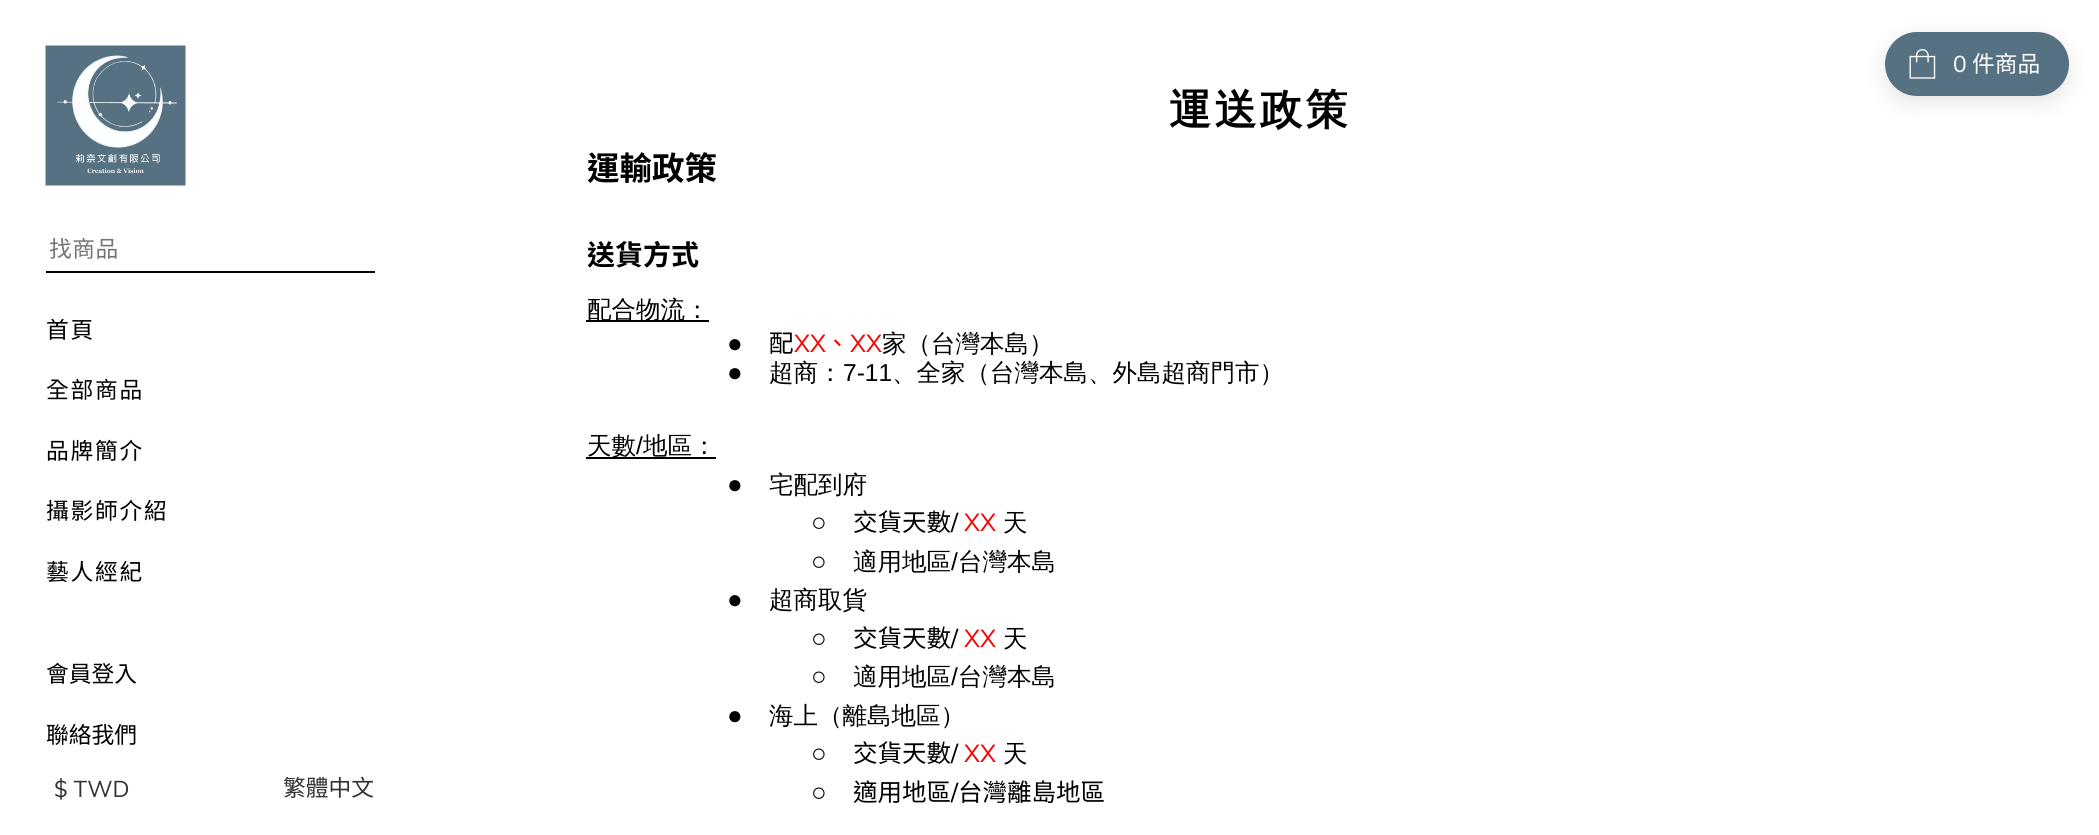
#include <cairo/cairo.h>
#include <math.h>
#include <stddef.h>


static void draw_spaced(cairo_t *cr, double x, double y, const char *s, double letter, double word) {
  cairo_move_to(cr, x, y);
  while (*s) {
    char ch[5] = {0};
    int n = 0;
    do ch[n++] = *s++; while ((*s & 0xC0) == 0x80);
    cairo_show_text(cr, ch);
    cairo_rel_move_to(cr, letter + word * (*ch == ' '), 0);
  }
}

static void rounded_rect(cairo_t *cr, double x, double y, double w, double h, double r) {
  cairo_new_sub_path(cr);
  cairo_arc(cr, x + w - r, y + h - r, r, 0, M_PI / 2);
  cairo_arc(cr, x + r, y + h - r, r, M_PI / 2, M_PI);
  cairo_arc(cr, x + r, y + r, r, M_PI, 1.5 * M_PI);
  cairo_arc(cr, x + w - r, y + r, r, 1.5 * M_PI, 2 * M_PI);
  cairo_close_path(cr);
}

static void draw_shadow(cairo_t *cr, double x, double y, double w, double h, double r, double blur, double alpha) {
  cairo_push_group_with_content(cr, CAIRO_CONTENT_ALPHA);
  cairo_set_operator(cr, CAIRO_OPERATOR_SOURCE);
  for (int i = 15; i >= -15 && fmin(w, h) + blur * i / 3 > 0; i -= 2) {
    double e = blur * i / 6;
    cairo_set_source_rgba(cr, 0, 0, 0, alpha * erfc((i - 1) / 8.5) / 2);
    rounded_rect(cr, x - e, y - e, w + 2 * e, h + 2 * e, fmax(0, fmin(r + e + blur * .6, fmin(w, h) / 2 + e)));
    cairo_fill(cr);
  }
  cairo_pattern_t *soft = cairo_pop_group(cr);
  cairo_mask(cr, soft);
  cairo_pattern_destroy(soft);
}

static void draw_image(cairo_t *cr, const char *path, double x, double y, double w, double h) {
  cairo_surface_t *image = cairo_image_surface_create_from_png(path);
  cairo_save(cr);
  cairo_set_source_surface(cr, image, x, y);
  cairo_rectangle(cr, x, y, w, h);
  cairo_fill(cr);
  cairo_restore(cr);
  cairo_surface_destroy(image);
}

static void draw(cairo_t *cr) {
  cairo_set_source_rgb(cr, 1, 1, 1);
  cairo_paint(cr);
  cairo_set_source_rgb(cr, 0, 0, 0);
  draw_shadow(cr, 1885, 39, 184, 64, 32, 10.5, 0.1);
  cairo_set_source_rgb(cr, 86 / 255.0, 113 / 255.0, 130 / 255.0);
  rounded_rect(cr, 1885, 32, 184, 64, 32);
  cairo_fill(cr);
  draw_image(cr, "images/1.png", 1909, 49, 27, 30);
  draw_image(cr, "images/2.png", 45, 45, 141, 141);
  cairo_set_source_rgb(cr, 0, 0, 0);
  cairo_rectangle(cr, 46, 271, 329, 2);
  cairo_fill(cr);
  cairo_rectangle(cr, 586, 320, 123, 2);
  cairo_fill(cr);
  cairo_rectangle(cr, 586, 457, 130, 2);
  cairo_fill(cr);
  cairo_select_font_face(cr, "Muli", CAIRO_FONT_SLANT_NORMAL, CAIRO_FONT_WEIGHT_NORMAL);
  cairo_set_font_size(cr, 22.75);
  cairo_set_source_rgb(cr, 1, 1, 1);
  cairo_move_to(cr, 1953, 72);
  cairo_show_text(cr, "0");
  cairo_select_font_face(cr, "Noto Sans TC", CAIRO_FONT_SLANT_NORMAL, CAIRO_FONT_WEIGHT_NORMAL);
  cairo_move_to(cr, 1972, 72);
  cairo_show_text(cr, "件商品");
  cairo_set_source_rgb(cr, 117 / 255.0, 117 / 255.0, 117 / 255.0);
  draw_spaced(cr, 49, 257, "找商品", 0.5, 0);
  cairo_set_source_rgb(cr, 0, 0, 0);
  draw_spaced(cr, 46, 338, "首頁", 1.75, 0);
  draw_spaced(cr, 46, 398, "全部商品", 1.75, 0);
  draw_spaced(cr, 46, 459, "品牌簡介", 1.75, 0);
  draw_spaced(cr, 46, 519, "攝影師介紹", 1.75, 0);
  draw_spaced(cr, 46, 580, "藝人經紀", 1.75, 0);
  cairo_move_to(cr, 46, 682);
  cairo_show_text(cr, "會員登入");
  cairo_move_to(cr, 46, 743);
  cairo_show_text(cr, "聯絡我們");
  cairo_select_font_face(cr, "Muli", CAIRO_FONT_SLANT_NORMAL, CAIRO_FONT_WEIGHT_NORMAL);
  cairo_set_source_rgb(cr, 51 / 255.0, 51 / 255.0, 51 / 255.0);
  cairo_move_to(cr, 54, 797);
  cairo_show_text(cr, "$ TWD");
  cairo_select_font_face(cr, "Noto Sans TC", CAIRO_FONT_SLANT_NORMAL, CAIRO_FONT_WEIGHT_NORMAL);
  cairo_move_to(cr, 283, 796);
  cairo_show_text(cr, "繁體中文");
  cairo_select_font_face(cr, "WenQuanYi Zen Hei", CAIRO_FONT_SLANT_NORMAL, CAIRO_FONT_WEIGHT_BOLD);
  cairo_set_font_size(cr, 42);
  cairo_set_source_rgb(cr, 0, 0, 0);
  draw_spaced(cr, 1169, 124, "運送政策", 3.5, 0);
  cairo_select_font_face(cr, "Noto Sans TC", CAIRO_FONT_SLANT_NORMAL, CAIRO_FONT_WEIGHT_BOLD);
  cairo_set_font_size(cr, 32.5);
  cairo_move_to(cr, 587, 180);
  cairo_show_text(cr, "運輸政策");
  cairo_set_font_size(cr, 28);
  cairo_move_to(cr, 587, 265);
  cairo_show_text(cr, "送貨方式");
  cairo_select_font_face(cr, "WenQuanYi Zen Hei Medium", CAIRO_FONT_SLANT_NORMAL, CAIRO_FONT_WEIGHT_NORMAL);
  cairo_set_font_size(cr, 24.5);
  cairo_move_to(cr, 587, 318);
  cairo_show_text(cr, "配合物流：");
  cairo_select_font_face(cr, "Liberation Sans", CAIRO_FONT_SLANT_NORMAL, CAIRO_FONT_WEIGHT_NORMAL);
  cairo_set_font_size(cr, 26);
  cairo_move_to(cr, 727, 352);
  cairo_show_text(cr, "●");
  cairo_select_font_face(cr, "Noto Sans TC", CAIRO_FONT_SLANT_NORMAL, CAIRO_FONT_WEIGHT_NORMAL);
  cairo_set_font_size(cr, 24.5);
  cairo_move_to(cr, 769, 352);
  cairo_show_text(cr, "配");
  cairo_select_font_face(cr, "Muli", CAIRO_FONT_SLANT_NORMAL, CAIRO_FONT_WEIGHT_NORMAL);
  cairo_set_source_rgb(cr, 1, 0, 0);
  cairo_move_to(cr, 794, 352);
  cairo_show_text(cr, "XX");
  cairo_select_font_face(cr, "Noto Sans TC", CAIRO_FONT_SLANT_NORMAL, CAIRO_FONT_WEIGHT_NORMAL);
  cairo_move_to(cr, 825, 352);
  cairo_show_text(cr, "、");
  cairo_select_font_face(cr, "Muli", CAIRO_FONT_SLANT_NORMAL, CAIRO_FONT_WEIGHT_NORMAL);
  cairo_move_to(cr, 850, 352);
  cairo_show_text(cr, "XX");
  cairo_select_font_face(cr, "WenQuanYi Zen Hei Medium", CAIRO_FONT_SLANT_NORMAL, CAIRO_FONT_WEIGHT_NORMAL);
  cairo_set_source_rgb(cr, 0, 0, 0);
  cairo_move_to(cr, 882, 352);
  cairo_show_text(cr, "家（台灣本島）");
  cairo_select_font_face(cr, "Liberation Sans", CAIRO_FONT_SLANT_NORMAL, CAIRO_FONT_WEIGHT_NORMAL);
  cairo_set_font_size(cr, 26);
  cairo_move_to(cr, 727, 381);
  cairo_show_text(cr, "●");
  cairo_select_font_face(cr, "WenQuanYi Zen Hei Medium", CAIRO_FONT_SLANT_NORMAL, CAIRO_FONT_WEIGHT_NORMAL);
  cairo_set_font_size(cr, 24.5);
  cairo_move_to(cr, 769, 381);
  cairo_show_text(cr, "超商：");
  cairo_select_font_face(cr, "Liberation Sans", CAIRO_FONT_SLANT_NORMAL, CAIRO_FONT_WEIGHT_NORMAL);
  cairo_move_to(cr, 843, 381);
  cairo_show_text(cr, "7-11");
  cairo_select_font_face(cr, "WenQuanYi Zen Hei Medium", CAIRO_FONT_SLANT_NORMAL, CAIRO_FONT_WEIGHT_NORMAL);
  cairo_move_to(cr, 892, 381);
  cairo_show_text(cr, "、全家（台灣本島、外島超商門市）");
  cairo_move_to(cr, 587, 454);
  cairo_show_text(cr, "天數");
  cairo_select_font_face(cr, "Liberation Sans", CAIRO_FONT_SLANT_NORMAL, CAIRO_FONT_WEIGHT_NORMAL);
  cairo_move_to(cr, 636, 454);
  cairo_show_text(cr, "/");
  cairo_select_font_face(cr, "WenQuanYi Zen Hei Medium", CAIRO_FONT_SLANT_NORMAL, CAIRO_FONT_WEIGHT_NORMAL);
  cairo_move_to(cr, 643, 454);
  cairo_show_text(cr, "地區：");
  cairo_select_font_face(cr, "Liberation Sans", CAIRO_FONT_SLANT_NORMAL, CAIRO_FONT_WEIGHT_NORMAL);
  cairo_set_font_size(cr, 26);
  cairo_move_to(cr, 727, 493);
  cairo_show_text(cr, "●");
  cairo_select_font_face(cr, "WenQuanYi Zen Hei Medium", CAIRO_FONT_SLANT_NORMAL, CAIRO_FONT_WEIGHT_NORMAL);
  cairo_set_font_size(cr, 24.5);
  cairo_move_to(cr, 769, 493);
  cairo_show_text(cr, "宅配到府");
  cairo_select_font_face(cr, "Liberation Sans", CAIRO_FONT_SLANT_NORMAL, CAIRO_FONT_WEIGHT_NORMAL);
  cairo_set_font_size(cr, 26);
  cairo_move_to(cr, 811, 531);
  cairo_show_text(cr, "○");
  cairo_select_font_face(cr, "Noto Sans TC", CAIRO_FONT_SLANT_NORMAL, CAIRO_FONT_WEIGHT_NORMAL);
  cairo_set_font_size(cr, 24.5);
  cairo_move_to(cr, 853, 531);
  cairo_show_text(cr, "交貨天數");
  cairo_select_font_face(cr, "Muli", CAIRO_FONT_SLANT_NORMAL, CAIRO_FONT_WEIGHT_NORMAL);
  cairo_move_to(cr, 951, 531);
  cairo_show_text(cr, "/");
  cairo_set_source_rgb(cr, 1, 0, 0);
  cairo_move_to(cr, 964, 531);
  cairo_show_text(cr, "XX");
  cairo_select_font_face(cr, "WenQuanYi Zen Hei Medium", CAIRO_FONT_SLANT_NORMAL, CAIRO_FONT_WEIGHT_NORMAL);
  cairo_set_source_rgb(cr, 0, 0, 0);
  cairo_move_to(cr, 1003, 531);
  cairo_show_text(cr, "天");
  cairo_select_font_face(cr, "Liberation Sans", CAIRO_FONT_SLANT_NORMAL, CAIRO_FONT_WEIGHT_NORMAL);
  cairo_set_font_size(cr, 26);
  cairo_move_to(cr, 811, 570);
  cairo_show_text(cr, "○");
  cairo_select_font_face(cr, "WenQuanYi Zen Hei Medium", CAIRO_FONT_SLANT_NORMAL, CAIRO_FONT_WEIGHT_NORMAL);
  cairo_set_font_size(cr, 24.5);
  cairo_move_to(cr, 853, 570);
  cairo_show_text(cr, "適用地區");
  cairo_select_font_face(cr, "Liberation Sans", CAIRO_FONT_SLANT_NORMAL, CAIRO_FONT_WEIGHT_NORMAL);
  cairo_move_to(cr, 951, 570);
  cairo_show_text(cr, "/");
  cairo_select_font_face(cr, "WenQuanYi Zen Hei Medium", CAIRO_FONT_SLANT_NORMAL, CAIRO_FONT_WEIGHT_NORMAL);
  cairo_move_to(cr, 958, 570);
  cairo_show_text(cr, "台灣本島");
  cairo_select_font_face(cr, "Liberation Sans", CAIRO_FONT_SLANT_NORMAL, CAIRO_FONT_WEIGHT_NORMAL);
  cairo_set_font_size(cr, 26);
  cairo_move_to(cr, 727, 608);
  cairo_show_text(cr, "●");
  cairo_select_font_face(cr, "WenQuanYi Zen Hei Medium", CAIRO_FONT_SLANT_NORMAL, CAIRO_FONT_WEIGHT_NORMAL);
  cairo_set_font_size(cr, 24.5);
  cairo_move_to(cr, 769, 608);
  cairo_show_text(cr, "超商取貨");
  cairo_select_font_face(cr, "Liberation Sans", CAIRO_FONT_SLANT_NORMAL, CAIRO_FONT_WEIGHT_NORMAL);
  cairo_set_font_size(cr, 26);
  cairo_move_to(cr, 811, 647);
  cairo_show_text(cr, "○");
  cairo_select_font_face(cr, "Noto Sans TC", CAIRO_FONT_SLANT_NORMAL, CAIRO_FONT_WEIGHT_NORMAL);
  cairo_set_font_size(cr, 24.5);
  cairo_move_to(cr, 853, 647);
  cairo_show_text(cr, "交貨天數");
  cairo_select_font_face(cr, "Muli", CAIRO_FONT_SLANT_NORMAL, CAIRO_FONT_WEIGHT_NORMAL);
  cairo_move_to(cr, 951, 647);
  cairo_show_text(cr, "/");
  cairo_set_source_rgb(cr, 1, 0, 0);
  cairo_move_to(cr, 964, 647);
  cairo_show_text(cr, "XX");
  cairo_select_font_face(cr, "WenQuanYi Zen Hei Medium", CAIRO_FONT_SLANT_NORMAL, CAIRO_FONT_WEIGHT_NORMAL);
  cairo_set_source_rgb(cr, 0, 0, 0);
  cairo_move_to(cr, 1003, 647);
  cairo_show_text(cr, "天");
  cairo_select_font_face(cr, "Liberation Sans", CAIRO_FONT_SLANT_NORMAL, CAIRO_FONT_WEIGHT_NORMAL);
  cairo_set_font_size(cr, 26);
  cairo_move_to(cr, 811, 685);
  cairo_show_text(cr, "○");
  cairo_select_font_face(cr, "WenQuanYi Zen Hei Medium", CAIRO_FONT_SLANT_NORMAL, CAIRO_FONT_WEIGHT_NORMAL);
  cairo_set_font_size(cr, 24.5);
  cairo_move_to(cr, 853, 685);
  cairo_show_text(cr, "適用地區");
  cairo_select_font_face(cr, "Liberation Sans", CAIRO_FONT_SLANT_NORMAL, CAIRO_FONT_WEIGHT_NORMAL);
  cairo_move_to(cr, 951, 685);
  cairo_show_text(cr, "/");
  cairo_select_font_face(cr, "WenQuanYi Zen Hei Medium", CAIRO_FONT_SLANT_NORMAL, CAIRO_FONT_WEIGHT_NORMAL);
  cairo_move_to(cr, 958, 685);
  cairo_show_text(cr, "台灣本島");
  cairo_select_font_face(cr, "Liberation Sans", CAIRO_FONT_SLANT_NORMAL, CAIRO_FONT_WEIGHT_NORMAL);
  cairo_set_font_size(cr, 26);
  cairo_move_to(cr, 727, 724);
  cairo_show_text(cr, "●");
  cairo_select_font_face(cr, "WenQuanYi Zen Hei Medium", CAIRO_FONT_SLANT_NORMAL, CAIRO_FONT_WEIGHT_NORMAL);
  cairo_set_font_size(cr, 24.5);
  cairo_move_to(cr, 769, 724);
  cairo_show_text(cr, "海上（離島地區）");
  cairo_select_font_face(cr, "Liberation Sans", CAIRO_FONT_SLANT_NORMAL, CAIRO_FONT_WEIGHT_NORMAL);
  cairo_set_font_size(cr, 26);
  cairo_move_to(cr, 811, 762);
  cairo_show_text(cr, "○");
  cairo_select_font_face(cr, "Noto Sans TC", CAIRO_FONT_SLANT_NORMAL, CAIRO_FONT_WEIGHT_NORMAL);
  cairo_set_font_size(cr, 24.5);
  cairo_move_to(cr, 853, 762);
  cairo_show_text(cr, "交貨天數");
  cairo_select_font_face(cr, "Muli", CAIRO_FONT_SLANT_NORMAL, CAIRO_FONT_WEIGHT_NORMAL);
  cairo_move_to(cr, 951, 762);
  cairo_show_text(cr, "/");
  cairo_set_source_rgb(cr, 1, 0, 0);
  cairo_move_to(cr, 964, 762);
  cairo_show_text(cr, "XX");
  cairo_select_font_face(cr, "WenQuanYi Zen Hei Medium", CAIRO_FONT_SLANT_NORMAL, CAIRO_FONT_WEIGHT_NORMAL);
  cairo_set_source_rgb(cr, 0, 0, 0);
  cairo_move_to(cr, 1003, 762);
  cairo_show_text(cr, "天");
  cairo_select_font_face(cr, "Liberation Sans", CAIRO_FONT_SLANT_NORMAL, CAIRO_FONT_WEIGHT_NORMAL);
  cairo_set_font_size(cr, 26);
  cairo_move_to(cr, 811, 801);
  cairo_show_text(cr, "○");
  cairo_select_font_face(cr, "Noto Sans TC", CAIRO_FONT_SLANT_NORMAL, CAIRO_FONT_WEIGHT_NORMAL);
  cairo_set_font_size(cr, 24.5);
  cairo_move_to(cr, 853, 801);
  cairo_show_text(cr, "適用地區");
  cairo_select_font_face(cr, "Muli", CAIRO_FONT_SLANT_NORMAL, CAIRO_FONT_WEIGHT_NORMAL);
  cairo_move_to(cr, 951, 801);
  cairo_show_text(cr, "/");
  cairo_select_font_face(cr, "Noto Sans TC", CAIRO_FONT_SLANT_NORMAL, CAIRO_FONT_WEIGHT_NORMAL);
  cairo_move_to(cr, 958, 801);
  cairo_show_text(cr, "台灣離島地區");
}

int main(void) {
  cairo_surface_t *surface = cairo_image_surface_create(CAIRO_FORMAT_RGB24, 2099, 835);
  cairo_t *cr = cairo_create(surface);
  cairo_font_options_t *options = cairo_font_options_create();
  cairo_font_options_set_hint_metrics(options, CAIRO_HINT_METRICS_OFF);
  cairo_font_options_set_hint_style(options, CAIRO_HINT_STYLE_NONE);
  cairo_set_font_options(cr, options);
  cairo_set_miter_limit(cr, 4);
  draw(cr);
  cairo_surface_write_to_png(surface, "out.png");
  cairo_font_options_destroy(options);
  cairo_destroy(cr);
  cairo_surface_destroy(surface);
  return 0;
}
